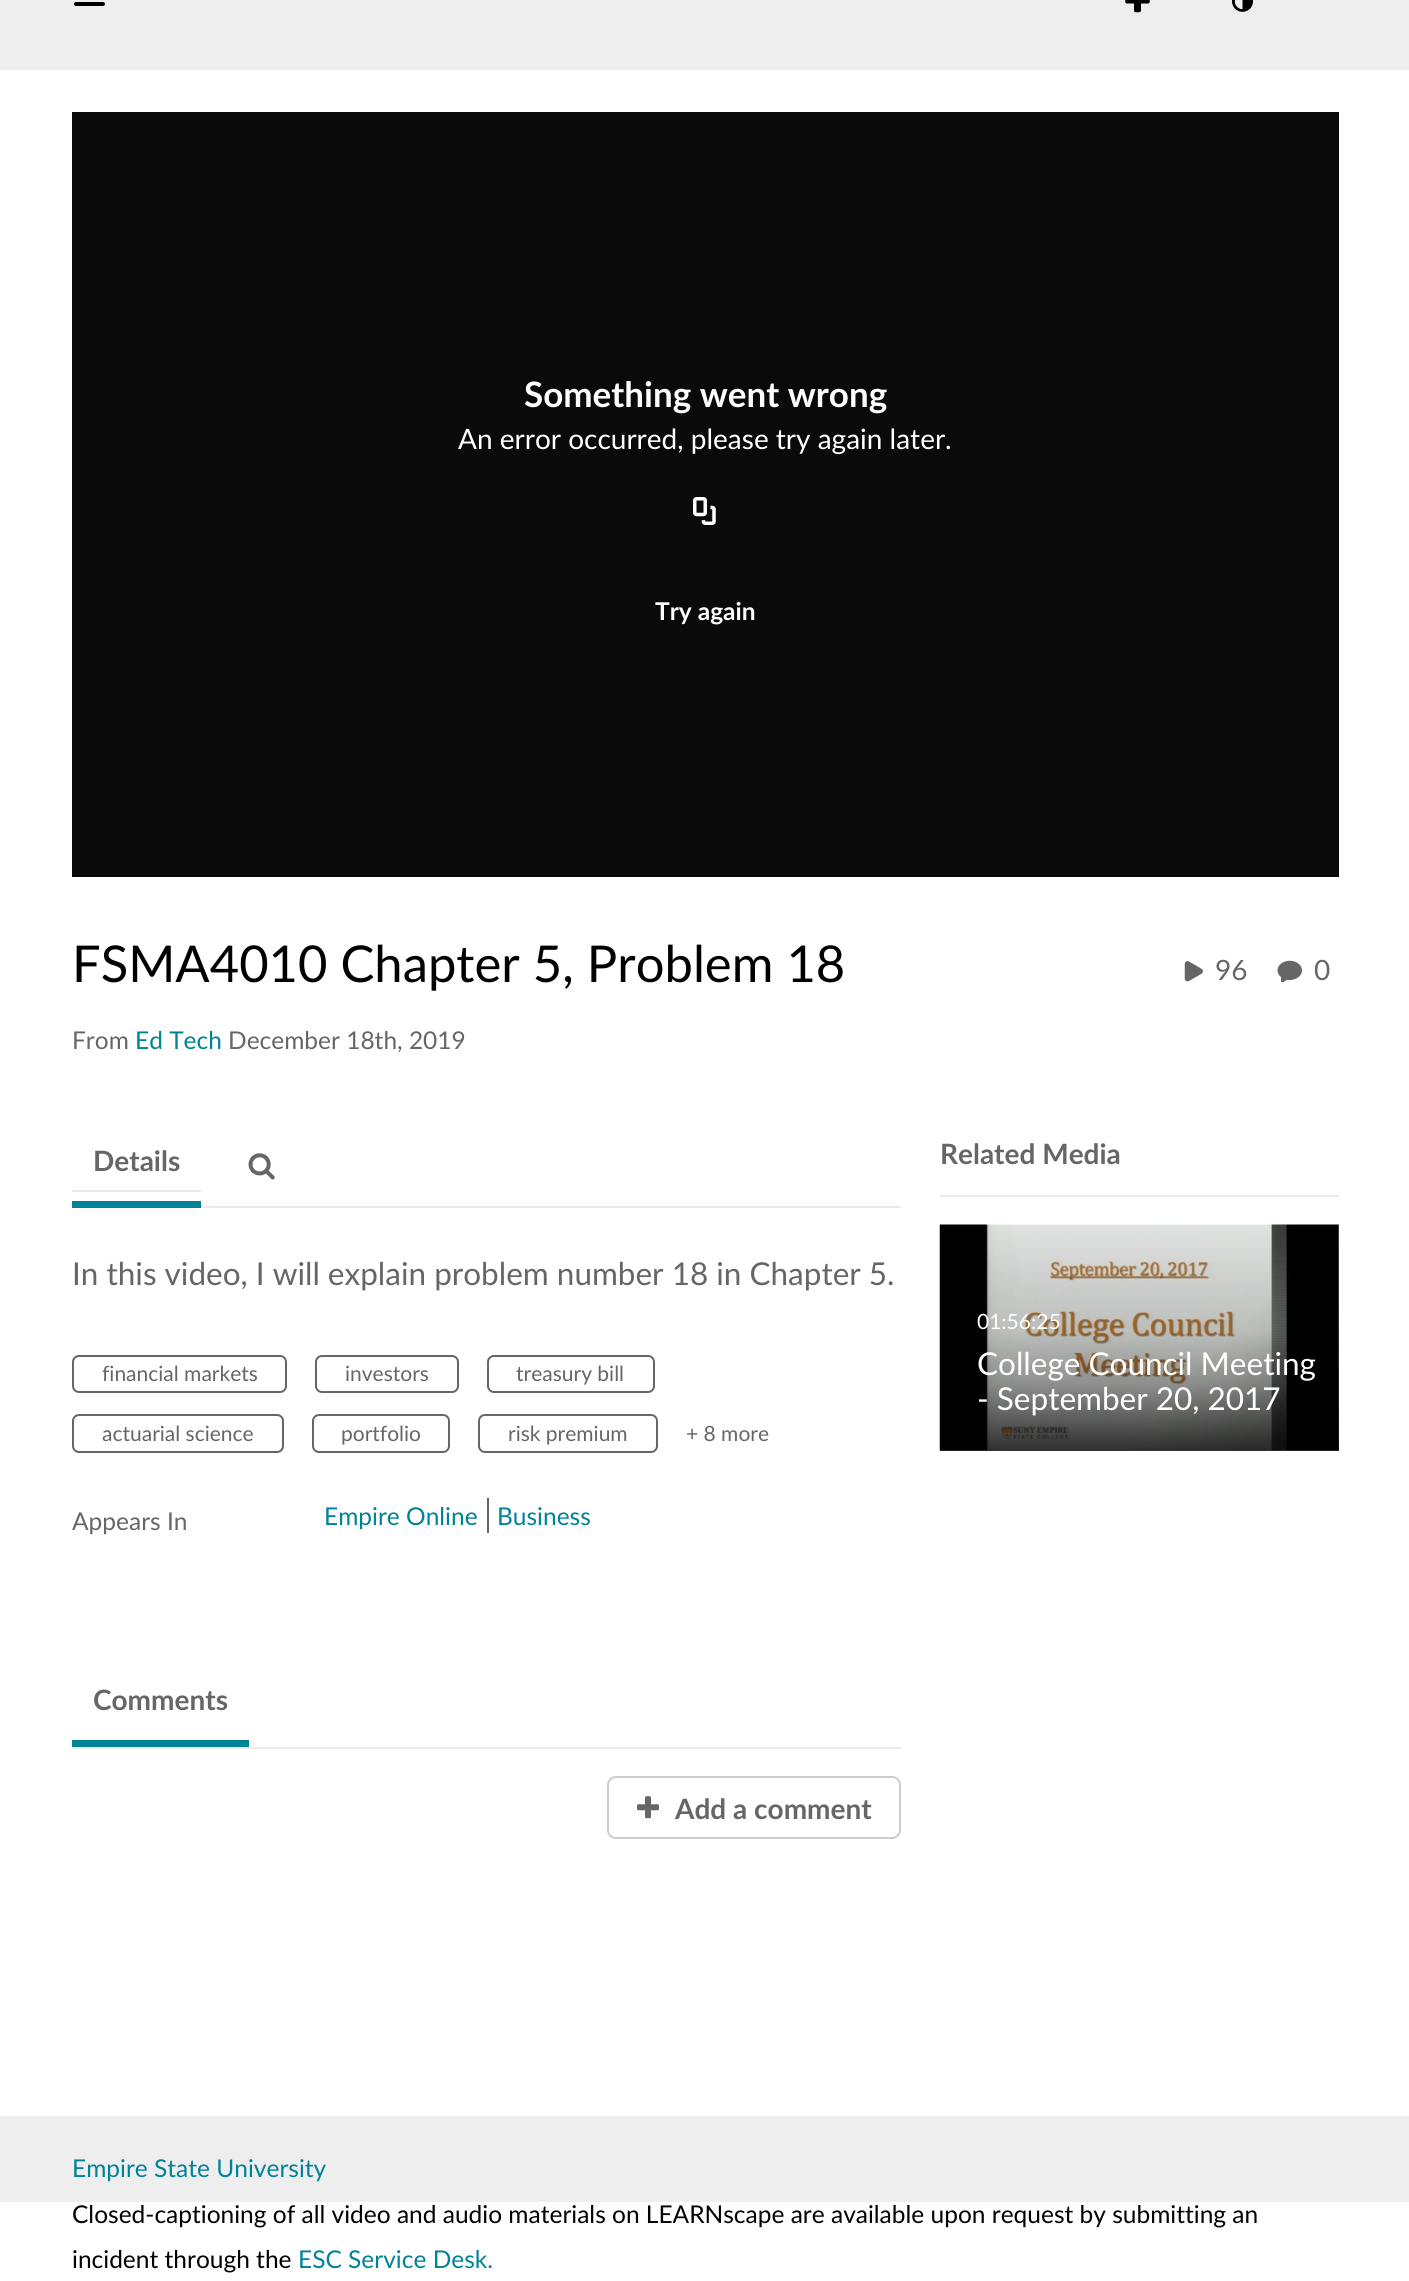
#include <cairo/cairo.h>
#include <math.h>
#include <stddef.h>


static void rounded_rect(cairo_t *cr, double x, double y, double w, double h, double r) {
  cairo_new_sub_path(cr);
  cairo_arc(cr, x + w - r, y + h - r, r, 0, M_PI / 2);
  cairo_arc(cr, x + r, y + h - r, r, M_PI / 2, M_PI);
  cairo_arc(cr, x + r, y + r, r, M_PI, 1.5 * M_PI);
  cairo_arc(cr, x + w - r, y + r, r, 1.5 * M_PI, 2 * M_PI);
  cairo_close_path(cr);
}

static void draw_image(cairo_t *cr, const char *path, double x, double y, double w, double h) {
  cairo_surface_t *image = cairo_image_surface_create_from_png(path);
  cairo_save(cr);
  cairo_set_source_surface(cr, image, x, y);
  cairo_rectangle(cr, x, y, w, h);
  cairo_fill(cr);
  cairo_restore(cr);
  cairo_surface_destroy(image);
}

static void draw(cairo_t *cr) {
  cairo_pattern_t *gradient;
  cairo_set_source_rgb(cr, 1, 1, 1);
  cairo_paint(cr);
  cairo_set_source_rgb(cr, 238 / 255.0, 238 / 255.0, 238 / 255.0);
  cairo_rectangle(cr, 0, 0, 1409, 70);
  cairo_fill(cr);
  cairo_set_source_rgb(cr, 0, 0, 0);
  rounded_rect(cr, 74, 2, 31, 4, 2);
  cairo_fill(cr);
  draw_image(cr, "images/1.png", 1125, 0, 25, 13);
  draw_image(cr, "images/2.png", 1232, 0, 21, 12);
  cairo_set_source_rgb(cr, 10 / 255.0, 10 / 255.0, 10 / 255.0);
  cairo_rectangle(cr, 72, 112, 1267, 765);
  cairo_fill(cr);
  draw_image(cr, "images/3.png", 693, 497, 23, 28);
  draw_image(cr, "images/4.png", 1184, 961, 19, 21);
  draw_image(cr, "images/5.png", 1277, 960, 25, 23);
  cairo_set_source_rgb(cr, 235 / 255.0, 235 / 255.0, 235 / 255.0);
  cairo_rectangle(cr, 201, 1206, 700, 2);
  cairo_fill(cr);
  cairo_rectangle(cr, 72, 1190, 129, 2);
  cairo_fill(cr);
  cairo_set_source_rgb(cr, 0, 130 / 255.0, 151 / 255.0);
  cairo_rectangle(cr, 72, 1201, 129, 7);
  cairo_fill(cr);
  draw_image(cr, "images/6.png", 248, 1153, 27, 27);
  rounded_rect(cr, 73, 1356, 213, 36, 6);
  cairo_set_source_rgb(cr, 102 / 255.0, 102 / 255.0, 102 / 255.0);
  cairo_stroke(cr);
  rounded_rect(cr, 316, 1356, 142, 36, 6);
  cairo_stroke(cr);
  rounded_rect(cr, 488, 1356, 166, 36, 6);
  cairo_stroke(cr);
  rounded_rect(cr, 73, 1415, 210, 37, 6);
  cairo_stroke(cr);
  rounded_rect(cr, 313, 1415, 136, 37, 6);
  cairo_stroke(cr);
  rounded_rect(cr, 479, 1415, 178, 37, 6);
  cairo_stroke(cr);
  cairo_rectangle(cr, 487, 1498, 2, 35);
  cairo_fill(cr);
  cairo_set_source_rgb(cr, 235 / 255.0, 235 / 255.0, 235 / 255.0);
  cairo_rectangle(cr, 72, 1747, 829, 2);
  cairo_fill(cr);
  cairo_set_source_rgb(cr, 0, 130 / 255.0, 151 / 255.0);
  cairo_rectangle(cr, 72, 1740, 177, 7);
  cairo_fill(cr);
  rounded_rect(cr, 608, 1777, 292, 61, 8);
  cairo_set_source_rgb(cr, 204 / 255.0, 204 / 255.0, 204 / 255.0);
  cairo_stroke(cr);
  draw_image(cr, "images/7.png", 637, 1796, 22, 23);
  cairo_set_source_rgb(cr, 235 / 255.0, 235 / 255.0, 235 / 255.0);
  cairo_rectangle(cr, 940, 1195, 399, 2);
  cairo_fill(cr);
  draw_image(cr, "images/8.png", 939, 1224, 400, 227);
  gradient = cairo_pattern_create_linear(1139, 1451, 1139, 1225);
  cairo_pattern_add_color_stop_rgba(gradient, 0, 0, 0, 0, 0.8);
  cairo_pattern_add_color_stop_rgba(gradient, 0.3, 0, 0, 0, 0.4);
  cairo_pattern_add_color_stop_rgba(gradient, 0.53, 0, 0, 0, 0.2);
  cairo_pattern_add_color_stop_rgba(gradient, 0.71, 0, 0, 0, 0.15);
  cairo_pattern_add_color_stop_rgba(gradient, 1, 0, 0, 0, 0.05);
  cairo_set_source(cr, gradient);
  cairo_pattern_destroy(gradient);
  cairo_rectangle(cr, 940, 1225, 399, 226);
  cairo_fill(cr);
  cairo_set_source_rgb(cr, 238 / 255.0, 238 / 255.0, 238 / 255.0);
  cairo_rectangle(cr, 0, 2116, 1409, 86);
  cairo_fill(cr);
  cairo_select_font_face(cr, "Lato", CAIRO_FONT_SLANT_NORMAL, CAIRO_FONT_WEIGHT_BOLD);
  cairo_set_font_size(cr, 35);
  cairo_set_source_rgb(cr, 1, 1, 1);
  cairo_move_to(cr, 524, 407);
  cairo_show_text(cr, "Something went wrong");
  cairo_select_font_face(cr, "Lato", CAIRO_FONT_SLANT_NORMAL, CAIRO_FONT_WEIGHT_NORMAL);
  cairo_set_font_size(cr, 28);
  cairo_move_to(cr, 458, 449);
  cairo_show_text(cr, "An error occurred, please try again later.");
  cairo_select_font_face(cr, "Lato", CAIRO_FONT_SLANT_NORMAL, CAIRO_FONT_WEIGHT_BOLD);
  cairo_set_font_size(cr, 24.5);
  cairo_move_to(cr, 655, 620);
  cairo_show_text(cr, "Try again");
  cairo_select_font_face(cr, "Lato", CAIRO_FONT_SLANT_NORMAL, CAIRO_FONT_WEIGHT_NORMAL);
  cairo_set_font_size(cr, 50.75);
  cairo_set_source_rgb(cr, 0, 0, 0);
  cairo_move_to(cr, 72, 982);
  cairo_show_text(cr, "FSMA4010 Chapter 5, Problem 18");
  cairo_set_font_size(cr, 24.5);
  cairo_set_source_rgb(cr, 102 / 255.0, 102 / 255.0, 102 / 255.0);
  cairo_move_to(cr, 72, 1049);
  cairo_show_text(cr, "From");
  cairo_set_source_rgb(cr, 0, 130 / 255.0, 151 / 255.0);
  cairo_move_to(cr, 135, 1049);
  cairo_show_text(cr, "Ed Tech");
  cairo_set_source_rgb(cr, 102 / 255.0, 102 / 255.0, 102 / 255.0);
  cairo_move_to(cr, 228, 1049);
  cairo_show_text(cr, "December 18th, 2019");
  cairo_set_font_size(cr, 28);
  cairo_move_to(cr, 1215, 980);
  cairo_show_text(cr, "96");
  cairo_move_to(cr, 1314, 980);
  cairo_show_text(cr, "0");
  cairo_select_font_face(cr, "Lato", CAIRO_FONT_SLANT_NORMAL, CAIRO_FONT_WEIGHT_BOLD);
  cairo_move_to(cr, 93, 1171);
  cairo_show_text(cr, "Details");
  cairo_select_font_face(cr, "Lato", CAIRO_FONT_SLANT_NORMAL, CAIRO_FONT_WEIGHT_NORMAL);
  cairo_set_font_size(cr, 31.5);
  cairo_move_to(cr, 72, 1285);
  cairo_show_text(cr, "In this video, I will explain problem number 18 in Chapter 5.");
  cairo_set_font_size(cr, 21);
  cairo_move_to(cr, 102, 1381);
  cairo_show_text(cr, "financial markets");
  cairo_move_to(cr, 345, 1381);
  cairo_show_text(cr, "investors");
  cairo_move_to(cr, 516, 1381);
  cairo_show_text(cr, "treasury bill");
  cairo_move_to(cr, 102, 1441);
  cairo_show_text(cr, "actuarial science");
  cairo_move_to(cr, 341, 1441);
  cairo_show_text(cr, "portfolio");
  cairo_move_to(cr, 508, 1441);
  cairo_show_text(cr, "risk premium");
  cairo_move_to(cr, 686, 1441);
  cairo_show_text(cr, "+ 8 more");
  cairo_set_font_size(cr, 24.5);
  cairo_move_to(cr, 72, 1530);
  cairo_show_text(cr, "Appears In");
  cairo_set_source_rgb(cr, 0, 130 / 255.0, 151 / 255.0);
  cairo_move_to(cr, 324, 1525);
  cairo_show_text(cr, "Empire Online");
  cairo_move_to(cr, 497, 1525);
  cairo_show_text(cr, "Business");
  cairo_select_font_face(cr, "Lato", CAIRO_FONT_SLANT_NORMAL, CAIRO_FONT_WEIGHT_BOLD);
  cairo_set_font_size(cr, 28);
  cairo_set_source_rgb(cr, 102 / 255.0, 102 / 255.0, 102 / 255.0);
  cairo_move_to(cr, 93, 1710);
  cairo_show_text(cr, "Comments");
  cairo_move_to(cr, 675, 1819);
  cairo_show_text(cr, "Add a comment");
  cairo_move_to(cr, 940, 1164);
  cairo_show_text(cr, "Related Media");
  cairo_select_font_face(cr, "Lato", CAIRO_FONT_SLANT_NORMAL, CAIRO_FONT_WEIGHT_NORMAL);
  cairo_set_font_size(cr, 21);
  cairo_set_source_rgb(cr, 1, 1, 1);
  cairo_move_to(cr, 977, 1329);
  cairo_show_text(cr, "01:56:25");
  cairo_set_font_size(cr, 31.5);
  cairo_move_to(cr, 977, 1375);
  cairo_show_text(cr, "College Council Meeting");
  cairo_move_to(cr, 977, 1410);
  cairo_show_text(cr, "- September 20, 2017");
  cairo_set_font_size(cr, 24.5);
  cairo_set_source_rgb(cr, 0, 130 / 255.0, 151 / 255.0);
  cairo_move_to(cr, 72, 2177);
  cairo_show_text(cr, "Empire State University");
  cairo_set_source_rgb(cr, 0, 0, 0);
  cairo_move_to(cr, 72, 2223);
  cairo_show_text(cr, "Closed-captioning of all video and audio materials on LEARNscape are available upon request by submitting an");
  cairo_move_to(cr, 72, 2268);
  cairo_show_text(cr, "incident through the");
  cairo_set_source_rgb(cr, 0, 130 / 255.0, 151 / 255.0);
  cairo_move_to(cr, 298, 2268);
  cairo_show_text(cr, "ESC Service Desk.");
}

int main(void) {
  cairo_surface_t *surface = cairo_image_surface_create(CAIRO_FORMAT_RGB24, 1409, 2281);
  cairo_t *cr = cairo_create(surface);
  cairo_font_options_t *options = cairo_font_options_create();
  cairo_font_options_set_hint_metrics(options, CAIRO_HINT_METRICS_OFF);
  cairo_font_options_set_hint_style(options, CAIRO_HINT_STYLE_NONE);
  cairo_set_font_options(cr, options);
  cairo_set_miter_limit(cr, 4);
  draw(cr);
  cairo_surface_write_to_png(surface, "out.png");
  cairo_font_options_destroy(options);
  cairo_destroy(cr);
  cairo_surface_destroy(surface);
  return 0;
}
